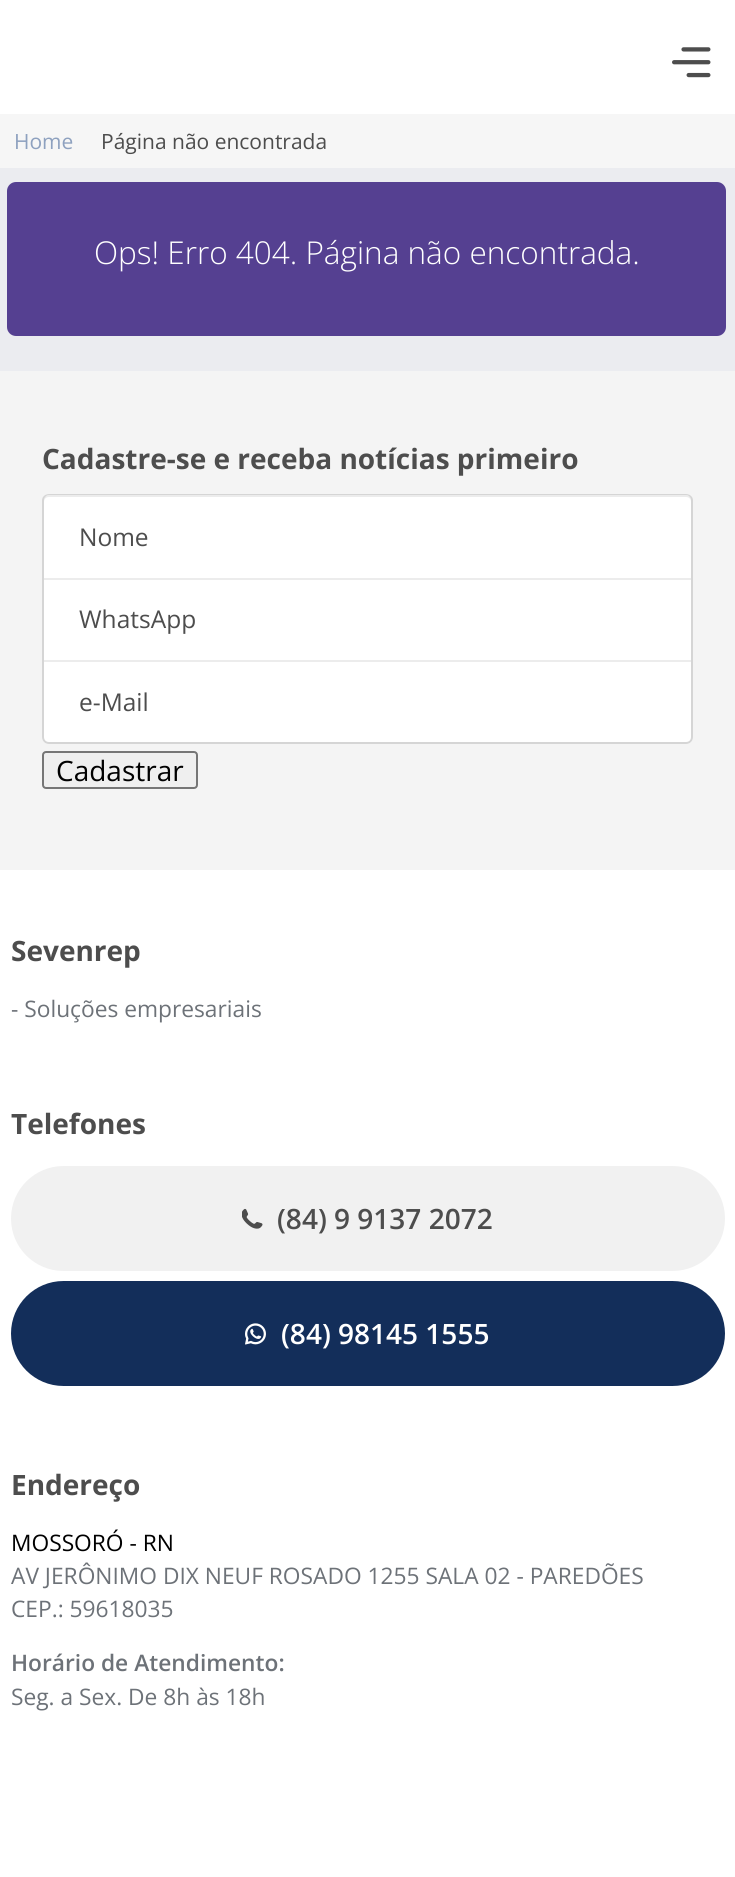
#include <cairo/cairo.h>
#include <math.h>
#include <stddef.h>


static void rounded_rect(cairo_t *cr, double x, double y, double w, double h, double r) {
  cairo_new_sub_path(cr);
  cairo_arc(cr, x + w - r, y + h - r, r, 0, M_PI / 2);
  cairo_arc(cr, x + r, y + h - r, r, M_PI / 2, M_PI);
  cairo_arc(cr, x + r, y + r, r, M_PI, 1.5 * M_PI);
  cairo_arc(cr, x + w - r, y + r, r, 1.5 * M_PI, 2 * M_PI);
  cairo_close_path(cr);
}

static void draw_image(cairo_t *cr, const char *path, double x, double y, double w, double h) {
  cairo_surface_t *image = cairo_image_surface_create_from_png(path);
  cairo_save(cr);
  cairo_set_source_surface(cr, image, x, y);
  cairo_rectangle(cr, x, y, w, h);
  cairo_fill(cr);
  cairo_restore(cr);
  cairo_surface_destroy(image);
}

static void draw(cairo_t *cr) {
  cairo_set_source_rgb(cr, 235 / 255.0, 236 / 255.0, 240 / 255.0);
  cairo_paint(cr);
  cairo_set_source_rgb(cr, 1, 1, 1);
  cairo_rectangle(cr, 0, 0, 735, 114);
  cairo_fill(cr);
  draw_image(cr, "images/1.png", 672, 47, 39, 31);
  cairo_set_source_rgb(cr, 246 / 255.0, 246 / 255.0, 246 / 255.0);
  cairo_rectangle(cr, 0, 114, 735, 54);
  cairo_fill(cr);
  cairo_set_source_rgb(cr, 85 / 255.0, 64 / 255.0, 145 / 255.0);
  rounded_rect(cr, 7, 182, 719, 154, 9);
  cairo_fill(cr);
  cairo_set_source_rgb(cr, 244 / 255.0, 244 / 255.0, 244 / 255.0);
  cairo_rectangle(cr, 0, 371, 735, 499);
  cairo_fill(cr);
  cairo_set_source_rgb(cr, 1, 1, 1);
  cairo_new_path(cr);
  cairo_move_to(cr, 49, 494);
  cairo_line_to(cr, 686, 494);
  cairo_curve_to(cr, 690, 494, 693, 497, 693, 501);
  cairo_line_to(cr, 693, 578);
  cairo_line_to(cr, 42, 578);
  cairo_line_to(cr, 42, 501);
  cairo_curve_to(cr, 42, 497, 45, 494, 49, 494);
  cairo_close_path(cr);
  cairo_fill(cr);
  cairo_set_source_rgb(cr, 236 / 255.0, 236 / 255.0, 236 / 255.0);
  cairo_new_path(cr);
  cairo_move_to(cr, 49, 497);
  cairo_line_to(cr, 686, 497);
  cairo_curve_to(cr, 689, 497, 691, 499, 691, 502);
  cairo_line_to(cr, 691, 500);
  cairo_curve_to(cr, 691, 497, 689, 495, 686, 495);
  cairo_line_to(cr, 49, 495);
  cairo_curve_to(cr, 46, 495, 44, 497, 44, 500);
  cairo_line_to(cr, 44, 502);
  cairo_curve_to(cr, 44, 499, 46, 497, 49, 497);
  cairo_close_path(cr);
  cairo_fill(cr);
  cairo_set_source_rgb(cr, 213 / 255.0, 213 / 255.0, 213 / 255.0);
  cairo_set_fill_rule(cr, CAIRO_FILL_RULE_EVEN_ODD);
  cairo_new_path(cr);
  cairo_move_to(cr, 49, 494);
  cairo_line_to(cr, 686, 494);
  cairo_curve_to(cr, 690, 494, 693, 497, 693, 500);
  cairo_line_to(cr, 693, 578);
  cairo_line_to(cr, 42, 578);
  cairo_line_to(cr, 42, 500);
  cairo_curve_to(cr, 42, 497, 45, 494, 49, 494);
  cairo_close_path(cr);
  cairo_move_to(cr, 49, 495);
  cairo_line_to(cr, 686, 495);
  cairo_curve_to(cr, 689, 495, 691, 498, 691, 500);
  cairo_line_to(cr, 691, 578);
  cairo_line_to(cr, 44, 578);
  cairo_line_to(cr, 44, 500);
  cairo_curve_to(cr, 44, 498, 46, 495, 49, 495);
  cairo_close_path(cr);
  cairo_fill(cr);
  cairo_set_source_rgb(cr, 1, 1, 1);
  cairo_rectangle(cr, 44, 580, 647, 80);
  cairo_fill(cr);
  cairo_set_source_rgb(cr, 236 / 255.0, 236 / 255.0, 236 / 255.0);
  cairo_rectangle(cr, 44, 578, 647, 2);
  cairo_fill(cr);
  cairo_set_source_rgb(cr, 213 / 255.0, 213 / 255.0, 213 / 255.0);
  cairo_rectangle(cr, 691, 578, 2, 82);
  cairo_fill(cr);
  cairo_rectangle(cr, 42, 578, 2, 82);
  cairo_fill(cr);
  cairo_set_source_rgb(cr, 1, 1, 1);
  cairo_new_path(cr);
  cairo_move_to(cr, 42, 660);
  cairo_line_to(cr, 693, 660);
  cairo_line_to(cr, 693, 737);
  cairo_curve_to(cr, 693, 741, 690, 744, 686, 744);
  cairo_line_to(cr, 49, 744);
  cairo_curve_to(cr, 45, 744, 42, 741, 42, 737);
  cairo_close_path(cr);
  cairo_fill(cr);
  cairo_set_source_rgb(cr, 236 / 255.0, 236 / 255.0, 236 / 255.0);
  cairo_rectangle(cr, 44, 660, 647, 2);
  cairo_fill(cr);
  cairo_set_source_rgb(cr, 213 / 255.0, 213 / 255.0, 213 / 255.0);
  cairo_new_path(cr);
  cairo_move_to(cr, 42, 660);
  cairo_line_to(cr, 693, 660);
  cairo_line_to(cr, 693, 737);
  cairo_curve_to(cr, 693, 741, 690, 744, 686, 744);
  cairo_line_to(cr, 49, 744);
  cairo_curve_to(cr, 45, 744, 42, 741, 42, 737);
  cairo_close_path(cr);
  cairo_move_to(cr, 44, 660);
  cairo_line_to(cr, 691, 660);
  cairo_line_to(cr, 691, 737);
  cairo_curve_to(cr, 691, 740, 689, 742, 686, 742);
  cairo_line_to(cr, 49, 742);
  cairo_curve_to(cr, 46, 742, 44, 740, 44, 737);
  cairo_close_path(cr);
  cairo_fill(cr);
  cairo_set_source_rgb(cr, 239 / 255.0, 239 / 255.0, 239 / 255.0);
  rounded_rect(cr, 43, 752, 154, 36, 3);
  cairo_fill_preserve(cr);
  cairo_set_source_rgb(cr, 118 / 255.0, 118 / 255.0, 118 / 255.0);
  cairo_stroke(cr);
  cairo_set_source_rgb(cr, 1, 1, 1);
  cairo_rectangle(cr, 0, 870, 735, 1007);
  cairo_fill(cr);
  cairo_set_source_rgb(cr, 241 / 255.0, 241 / 255.0, 241 / 255.0);
  rounded_rect(cr, 11, 1166, 714, 105, 52.5);
  cairo_fill(cr);
  draw_image(cr, "images/2.png", 242, 1208, 21, 21);
  cairo_set_source_rgb(cr, 19 / 255.0, 46 / 255.0, 90 / 255.0);
  rounded_rect(cr, 11, 1281, 714, 105, 52.5);
  cairo_fill(cr);
  draw_image(cr, "images/3.png", 245, 1323, 21, 22);
  cairo_select_font_face(cr, "Open Sans", CAIRO_FONT_SLANT_NORMAL, CAIRO_FONT_WEIGHT_NORMAL);
  cairo_set_font_size(cr, 21);
  cairo_set_source_rgb(cr, 142 / 255.0, 161 / 255.0, 191 / 255.0);
  cairo_move_to(cr, 14, 149);
  cairo_show_text(cr, "Home");
  cairo_set_source_rgb(cr, 77 / 255.0, 77 / 255.0, 77 / 255.0);
  cairo_move_to(cr, 101, 149);
  cairo_show_text(cr, "Página não encontrada");
  cairo_select_font_face(cr, "Open Sans Light", CAIRO_FONT_SLANT_NORMAL, CAIRO_FONT_WEIGHT_NORMAL);
  cairo_set_font_size(cr, 31.5);
  cairo_set_source_rgb(cr, 1, 1, 1);
  cairo_move_to(cr, 94, 264);
  cairo_show_text(cr, "Ops! Erro 404. Página não encontrada.");
  cairo_select_font_face(cr, "Open Sans", CAIRO_FONT_SLANT_NORMAL, CAIRO_FONT_WEIGHT_BOLD);
  cairo_set_font_size(cr, 28);
  cairo_set_source_rgb(cr, 77 / 255.0, 77 / 255.0, 77 / 255.0);
  cairo_move_to(cr, 42, 469);
  cairo_show_text(cr, "Cadastre-se e receba notícias primeiro");
  cairo_select_font_face(cr, "Open Sans", CAIRO_FONT_SLANT_NORMAL, CAIRO_FONT_WEIGHT_NORMAL);
  cairo_set_font_size(cr, 24.5);
  cairo_move_to(cr, 79, 546);
  cairo_show_text(cr, "Nome");
  cairo_move_to(cr, 79, 628);
  cairo_show_text(cr, "WhatsApp");
  cairo_move_to(cr, 79, 711);
  cairo_show_text(cr, "e-Mail");
  cairo_set_font_size(cr, 28);
  cairo_set_source_rgb(cr, 0, 0, 0);
  cairo_move_to(cr, 56, 781);
  cairo_show_text(cr, "Cadastrar");
  cairo_select_font_face(cr, "Open Sans", CAIRO_FONT_SLANT_NORMAL, CAIRO_FONT_WEIGHT_BOLD);
  cairo_set_source_rgb(cr, 77 / 255.0, 77 / 255.0, 77 / 255.0);
  cairo_move_to(cr, 11, 961);
  cairo_show_text(cr, "Sevenrep");
  cairo_select_font_face(cr, "Open Sans", CAIRO_FONT_SLANT_NORMAL, CAIRO_FONT_WEIGHT_NORMAL);
  cairo_set_font_size(cr, 22.75);
  cairo_set_source_rgb(cr, 109 / 255.0, 114 / 255.0, 120 / 255.0);
  cairo_move_to(cr, 11, 1017);
  cairo_show_text(cr, "- Soluções empresariais");
  cairo_select_font_face(cr, "Open Sans", CAIRO_FONT_SLANT_NORMAL, CAIRO_FONT_WEIGHT_BOLD);
  cairo_set_font_size(cr, 28);
  cairo_set_source_rgb(cr, 77 / 255.0, 77 / 255.0, 77 / 255.0);
  cairo_move_to(cr, 11, 1134);
  cairo_show_text(cr, "Telefones");
  cairo_select_font_face(cr, "Open Sans SemiBold", CAIRO_FONT_SLANT_NORMAL, CAIRO_FONT_WEIGHT_NORMAL);
  cairo_move_to(cr, 277, 1229);
  cairo_show_text(cr, "(84) 9 9137 2072");
  cairo_set_source_rgb(cr, 1, 1, 1);
  cairo_move_to(cr, 281, 1344);
  cairo_show_text(cr, "(84) 98145 1555");
  cairo_select_font_face(cr, "Open Sans", CAIRO_FONT_SLANT_NORMAL, CAIRO_FONT_WEIGHT_BOLD);
  cairo_set_source_rgb(cr, 77 / 255.0, 77 / 255.0, 77 / 255.0);
  cairo_move_to(cr, 11, 1495);
  cairo_show_text(cr, "Endereço");
  cairo_select_font_face(cr, "Open Sans", CAIRO_FONT_SLANT_NORMAL, CAIRO_FONT_WEIGHT_NORMAL);
  cairo_set_font_size(cr, 22.75);
  cairo_set_source_rgb(cr, 0, 0, 0);
  cairo_move_to(cr, 11, 1551);
  cairo_show_text(cr, "MOSSORÓ - RN");
  cairo_set_source_rgb(cr, 109 / 255.0, 114 / 255.0, 120 / 255.0);
  cairo_move_to(cr, 11, 1584);
  cairo_show_text(cr, "AV JERÔNIMO DIX NEUF ROSADO 1255 SALA 02 - PAREDÕES");
  cairo_move_to(cr, 11, 1617);
  cairo_show_text(cr, "CEP.: 59618035");
  cairo_select_font_face(cr, "Open Sans SemiBold", CAIRO_FONT_SLANT_NORMAL, CAIRO_FONT_WEIGHT_NORMAL);
  cairo_move_to(cr, 11, 1671);
  cairo_show_text(cr, "Horário de Atendimento:");
  cairo_select_font_face(cr, "Open Sans", CAIRO_FONT_SLANT_NORMAL, CAIRO_FONT_WEIGHT_NORMAL);
  cairo_move_to(cr, 11, 1705);
  cairo_show_text(cr, "Seg. a Sex. De 8h às 18h");
}

int main(void) {
  cairo_surface_t *surface = cairo_image_surface_create(CAIRO_FORMAT_RGB24, 735, 1877);
  cairo_t *cr = cairo_create(surface);
  cairo_font_options_t *options = cairo_font_options_create();
  cairo_font_options_set_hint_metrics(options, CAIRO_HINT_METRICS_OFF);
  cairo_font_options_set_hint_style(options, CAIRO_HINT_STYLE_NONE);
  cairo_set_font_options(cr, options);
  cairo_set_miter_limit(cr, 4);
  draw(cr);
  cairo_surface_write_to_png(surface, "out.png");
  cairo_font_options_destroy(options);
  cairo_destroy(cr);
  cairo_surface_destroy(surface);
  return 0;
}
